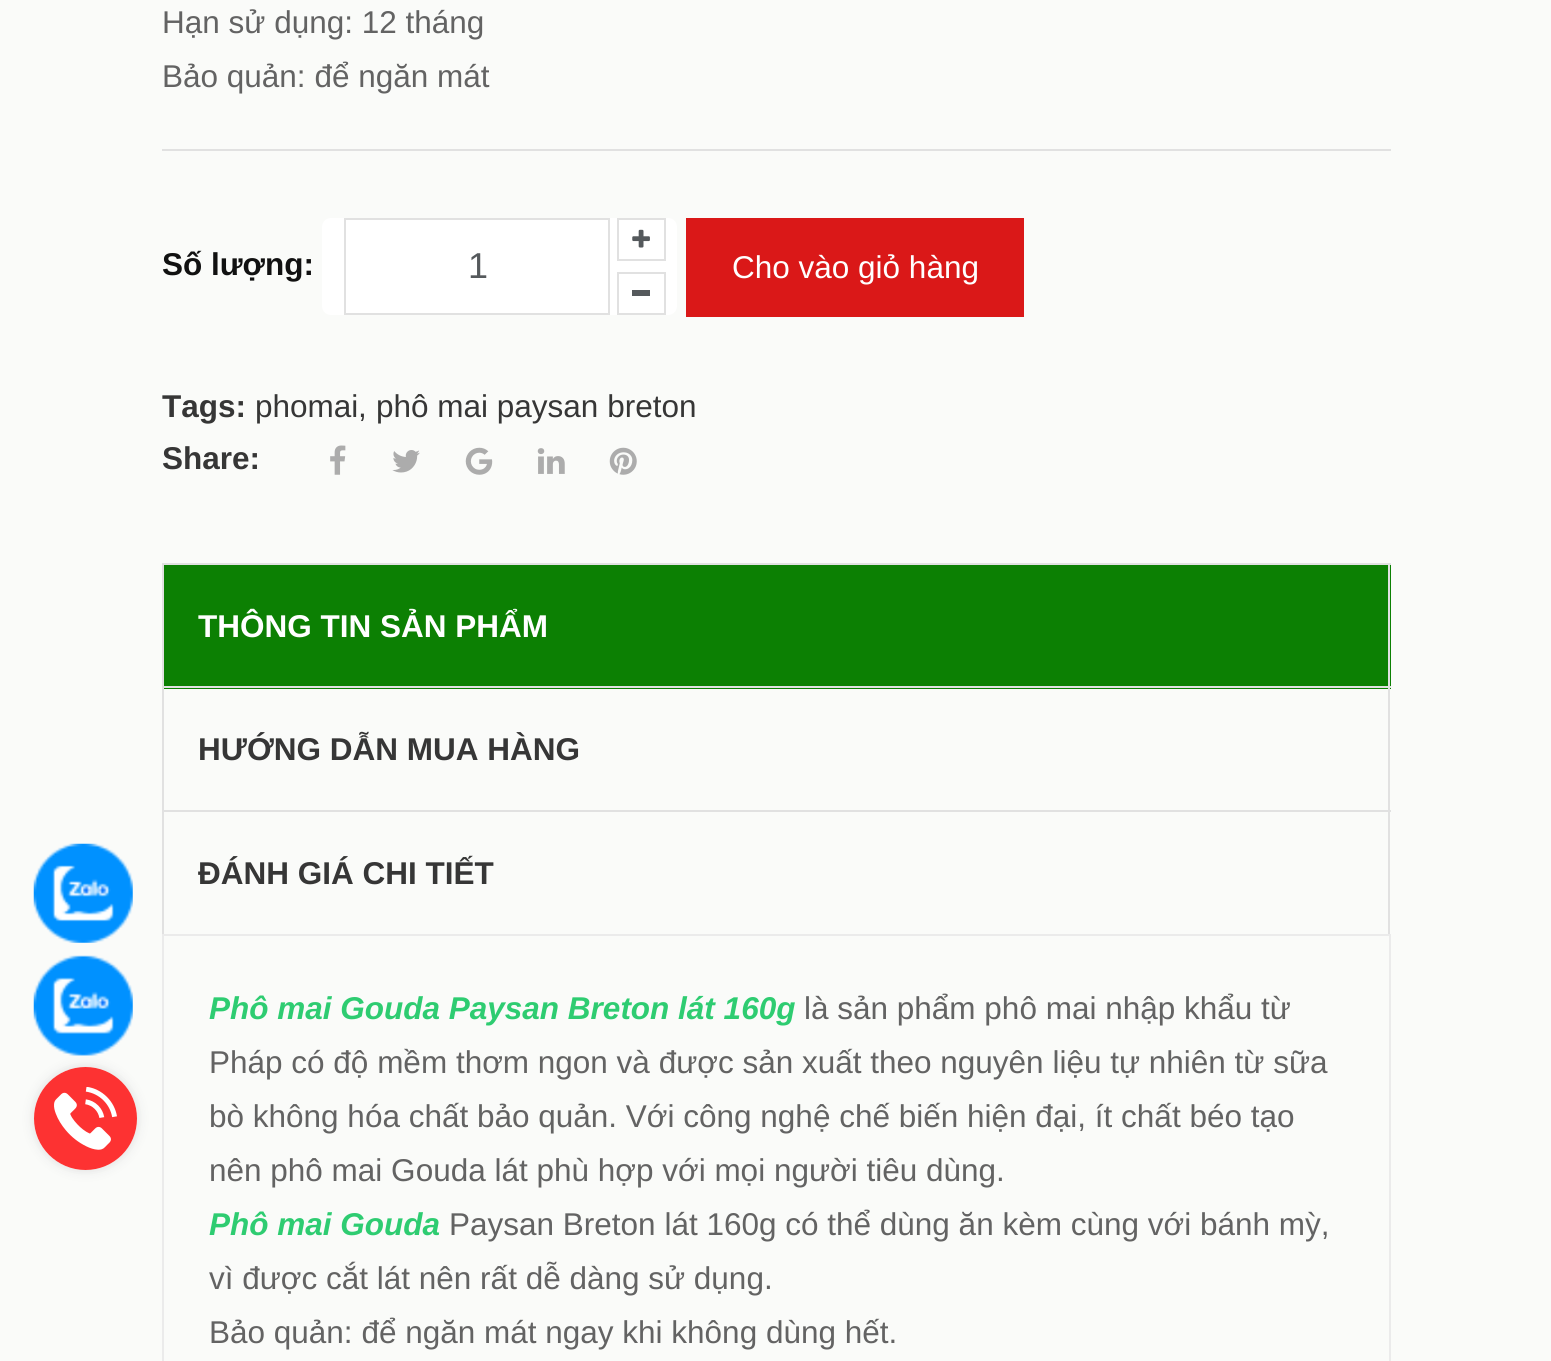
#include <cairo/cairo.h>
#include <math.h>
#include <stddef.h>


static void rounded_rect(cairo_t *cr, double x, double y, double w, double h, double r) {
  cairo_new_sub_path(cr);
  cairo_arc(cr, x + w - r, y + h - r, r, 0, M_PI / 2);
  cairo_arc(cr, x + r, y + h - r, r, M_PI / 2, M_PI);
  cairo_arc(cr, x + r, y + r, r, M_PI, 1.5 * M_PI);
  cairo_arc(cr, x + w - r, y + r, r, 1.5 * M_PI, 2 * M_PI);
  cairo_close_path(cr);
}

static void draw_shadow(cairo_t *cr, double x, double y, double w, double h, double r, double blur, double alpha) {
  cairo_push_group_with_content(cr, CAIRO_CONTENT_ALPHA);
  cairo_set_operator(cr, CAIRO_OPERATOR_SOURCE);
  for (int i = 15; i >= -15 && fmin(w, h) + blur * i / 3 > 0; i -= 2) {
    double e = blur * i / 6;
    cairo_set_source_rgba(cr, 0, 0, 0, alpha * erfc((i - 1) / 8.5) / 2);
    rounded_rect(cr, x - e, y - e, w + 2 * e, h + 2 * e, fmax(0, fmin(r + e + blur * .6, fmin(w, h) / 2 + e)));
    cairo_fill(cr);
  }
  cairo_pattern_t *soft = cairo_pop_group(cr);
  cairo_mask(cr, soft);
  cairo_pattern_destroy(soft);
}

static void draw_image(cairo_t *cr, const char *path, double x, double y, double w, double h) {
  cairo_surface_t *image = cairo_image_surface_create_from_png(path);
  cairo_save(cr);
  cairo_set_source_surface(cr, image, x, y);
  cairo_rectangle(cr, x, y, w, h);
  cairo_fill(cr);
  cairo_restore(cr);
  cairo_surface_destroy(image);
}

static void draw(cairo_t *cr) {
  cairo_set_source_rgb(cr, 250 / 255.0, 251 / 255.0, 249 / 255.0);
  cairo_paint(cr);
  draw_image(cr, "images/1.png", 33, 843, 100, 100);
  draw_image(cr, "images/2.png", 33, 955, 100, 101);
  cairo_set_source_rgb(cr, 225 / 255.0, 225 / 255.0, 225 / 255.0);
  cairo_rectangle(cr, 162, 149, 1229, 2);
  cairo_fill(cr);
  cairo_set_source_rgb(cr, 1, 1, 1);
  rounded_rect(cr, 322, 218, 355, 97, 9);
  cairo_fill(cr);
  cairo_rectangle(cr, 618, 219, 47, 41);
  cairo_set_source_rgb(cr, 225 / 255.0, 225 / 255.0, 225 / 255.0);
  cairo_stroke(cr);
  draw_image(cr, "images/3.png", 632, 229, 18, 19);
  cairo_rectangle(cr, 345, 219, 264, 95);
  cairo_stroke(cr);
  cairo_rectangle(cr, 618, 273, 47, 41);
  cairo_stroke(cr);
  cairo_set_source_rgb(cr, 85 / 255.0, 89 / 255.0, 92 / 255.0);
  cairo_rectangle(cr, 632, 290, 18, 6);
  cairo_fill(cr);
  cairo_set_source_rgb(cr, 218 / 255.0, 24 / 255.0, 24 / 255.0);
  cairo_rectangle(cr, 686, 218, 338, 99);
  cairo_fill(cr);
  draw_image(cr, "images/4.png", 330, 445, 16, 30);
  draw_image(cr, "images/5.png", 392, 450, 28, 23);
  draw_image(cr, "images/6.png", 465, 447, 28, 28);
  draw_image(cr, "images/7.png", 537, 448, 28, 26);
  draw_image(cr, "images/8.png", 609, 447, 28, 28);
  cairo_set_source_rgb(cr, 225 / 255.0, 225 / 255.0, 225 / 255.0);
  cairo_rectangle(cr, 162, 563, 2, 371);
  cairo_fill(cr);
  cairo_set_source_rgb(cr, 12 / 255.0, 128 / 255.0, 3 / 255.0);
  cairo_rectangle(cr, 164, 565, 1227, 124);
  cairo_fill(cr);
  cairo_set_source_rgb(cr, 225 / 255.0, 225 / 255.0, 225 / 255.0);
  cairo_rectangle(cr, 164, 563, 1227, 2);
  cairo_fill(cr);
  cairo_rectangle(cr, 1388, 563, 2, 126);
  cairo_fill(cr);
  cairo_rectangle(cr, 164, 686, 1227, 2);
  cairo_fill(cr);
  cairo_rectangle(cr, 1388, 686, 2, 126);
  cairo_fill(cr);
  cairo_rectangle(cr, 164, 810, 1227, 2);
  cairo_fill(cr);
  cairo_rectangle(cr, 1388, 810, 2, 126);
  cairo_fill(cr);
  cairo_rectangle(cr, 163, 935, 1227, 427);
  cairo_set_source_rgb(cr, 235 / 255.0, 235 / 255.0, 235 / 255.0);
  cairo_stroke(cr);
  cairo_save(cr);
  cairo_set_fill_rule(cr, CAIRO_FILL_RULE_EVEN_ODD);
  cairo_new_path(cr);
  cairo_move_to(cr, 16, 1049);
  cairo_line_to(cr, 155, 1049);
  cairo_line_to(cr, 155, 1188);
  cairo_line_to(cr, 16, 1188);
  cairo_close_path(cr);
  cairo_move_to(cr, 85.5, 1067);
  cairo_curve_to(cr, 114, 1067, 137, 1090, 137, 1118.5);
  cairo_curve_to(cr, 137, 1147, 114, 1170, 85.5, 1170);
  cairo_curve_to(cr, 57, 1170, 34, 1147, 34, 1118.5);
  cairo_curve_to(cr, 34, 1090, 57, 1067, 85.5, 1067);
  cairo_close_path(cr);
  cairo_clip(cr);
  cairo_set_source_rgb(cr, 221 / 255.0, 221 / 255.0, 221 / 255.0);
  draw_shadow(cr, 34, 1067, 103, 103, 51.5, 5.5, 1);
  cairo_restore(cr);
  cairo_set_source_rgba(cr, 254 / 255.0, 0, 0, 0.8);
  cairo_arc(cr, 85.5, 1118.5, 51.5, 0, 2 * M_PI);
  cairo_fill(cr);
  draw_image(cr, "images/9.png", 54, 1087, 63, 63);
  cairo_select_font_face(cr, "Liberation Sans", CAIRO_FONT_SLANT_NORMAL, CAIRO_FONT_WEIGHT_NORMAL);
  cairo_set_font_size(cr, 31.5);
  cairo_set_source_rgb(cr, 99 / 255.0, 99 / 255.0, 99 / 255.0);
  cairo_move_to(cr, 162, 33);
  cairo_show_text(cr, "Hạn sử dụng: 12 tháng");
  cairo_move_to(cr, 162, 87);
  cairo_show_text(cr, "Bảo quản: để ngăn mát");
  cairo_select_font_face(cr, "Liberation Sans", CAIRO_FONT_SLANT_NORMAL, CAIRO_FONT_WEIGHT_BOLD);
  cairo_set_source_rgb(cr, 17 / 255.0, 17 / 255.0, 17 / 255.0);
  cairo_move_to(cr, 162, 275);
  cairo_show_text(cr, "Số lượng:");
  cairo_select_font_face(cr, "Liberation Sans", CAIRO_FONT_SLANT_NORMAL, CAIRO_FONT_WEIGHT_NORMAL);
  cairo_set_font_size(cr, 36);
  cairo_set_source_rgb(cr, 85 / 255.0, 89 / 255.0, 92 / 255.0);
  cairo_move_to(cr, 468, 278);
  cairo_show_text(cr, "1");
  cairo_set_font_size(cr, 31.5);
  cairo_set_source_rgb(cr, 1, 1, 1);
  cairo_move_to(cr, 732, 278);
  cairo_show_text(cr, "Cho vào giỏ hàng");
  cairo_select_font_face(cr, "Liberation Sans", CAIRO_FONT_SLANT_NORMAL, CAIRO_FONT_WEIGHT_BOLD);
  cairo_set_source_rgb(cr, 54 / 255.0, 54 / 255.0, 54 / 255.0);
  cairo_move_to(cr, 162, 417);
  cairo_show_text(cr, "Tags:");
  cairo_select_font_face(cr, "Liberation Sans", CAIRO_FONT_SLANT_NORMAL, CAIRO_FONT_WEIGHT_NORMAL);
  cairo_move_to(cr, 255, 417);
  cairo_show_text(cr, "phomai");
  cairo_move_to(cr, 358, 417);
  cairo_show_text(cr, ",");
  cairo_move_to(cr, 376, 417);
  cairo_show_text(cr, "phô mai paysan breton");
  cairo_select_font_face(cr, "Liberation Sans", CAIRO_FONT_SLANT_NORMAL, CAIRO_FONT_WEIGHT_BOLD);
  cairo_move_to(cr, 162, 469);
  cairo_show_text(cr, "Share:");
  cairo_set_source_rgb(cr, 1, 1, 1);
  cairo_move_to(cr, 198, 637);
  cairo_show_text(cr, "THÔNG TIN SẢN PHẨM");
  cairo_set_source_rgb(cr, 54 / 255.0, 54 / 255.0, 54 / 255.0);
  cairo_move_to(cr, 198, 760);
  cairo_show_text(cr, "HƯỚNG DẪN MUA HÀNG");
  cairo_move_to(cr, 198, 884);
  cairo_show_text(cr, "ĐÁNH GIÁ CHI TIẾT");
  cairo_select_font_face(cr, "Liberation Sans", CAIRO_FONT_SLANT_ITALIC, CAIRO_FONT_WEIGHT_BOLD);
  cairo_set_source_rgb(cr, 46 / 255.0, 204 / 255.0, 113 / 255.0);
  cairo_move_to(cr, 209, 1019);
  cairo_show_text(cr, "Phô mai Gouda Paysan Breton lát 160g");
  cairo_select_font_face(cr, "Liberation Sans", CAIRO_FONT_SLANT_NORMAL, CAIRO_FONT_WEIGHT_NORMAL);
  cairo_set_source_rgb(cr, 99 / 255.0, 99 / 255.0, 99 / 255.0);
  cairo_move_to(cr, 804, 1019);
  cairo_show_text(cr, "là sản phẩm phô mai nhập khẩu từ");
  cairo_move_to(cr, 209, 1073);
  cairo_show_text(cr, "Pháp có độ mềm thơm ngon và được sản xuất theo nguyên liệu tự nhiên từ sữa");
  cairo_move_to(cr, 209, 1127);
  cairo_show_text(cr, "bò không hóa chất bảo quản. Với công nghệ chế biến hiện đại, ít chất béo tạo");
  cairo_move_to(cr, 209, 1181);
  cairo_show_text(cr, "nên phô mai Gouda lát phù hợp với mọi người tiêu dùng.");
  cairo_select_font_face(cr, "Liberation Sans", CAIRO_FONT_SLANT_ITALIC, CAIRO_FONT_WEIGHT_BOLD);
  cairo_set_source_rgb(cr, 46 / 255.0, 204 / 255.0, 113 / 255.0);
  cairo_move_to(cr, 209, 1235);
  cairo_show_text(cr, "Phô mai Gouda");
  cairo_select_font_face(cr, "Liberation Sans", CAIRO_FONT_SLANT_NORMAL, CAIRO_FONT_WEIGHT_NORMAL);
  cairo_set_source_rgb(cr, 99 / 255.0, 99 / 255.0, 99 / 255.0);
  cairo_move_to(cr, 449, 1235);
  cairo_show_text(cr, "Paysan Breton lát 160g có thể dùng ăn kèm cùng với bánh mỳ,");
  cairo_move_to(cr, 209, 1289);
  cairo_show_text(cr, "vì được cắt lát nên rất dễ dàng sử dụng.");
  cairo_move_to(cr, 209, 1343);
  cairo_show_text(cr, "Bảo quản: để ngăn mát ngay khi không dùng hết.");
}

int main(void) {
  cairo_surface_t *surface = cairo_image_surface_create(CAIRO_FORMAT_RGB24, 1551, 1361);
  cairo_t *cr = cairo_create(surface);
  cairo_font_options_t *options = cairo_font_options_create();
  cairo_font_options_set_hint_metrics(options, CAIRO_HINT_METRICS_OFF);
  cairo_font_options_set_hint_style(options, CAIRO_HINT_STYLE_NONE);
  cairo_set_font_options(cr, options);
  cairo_set_miter_limit(cr, 4);
  draw(cr);
  cairo_surface_write_to_png(surface, "out.png");
  cairo_font_options_destroy(options);
  cairo_destroy(cr);
  cairo_surface_destroy(surface);
  return 0;
}
